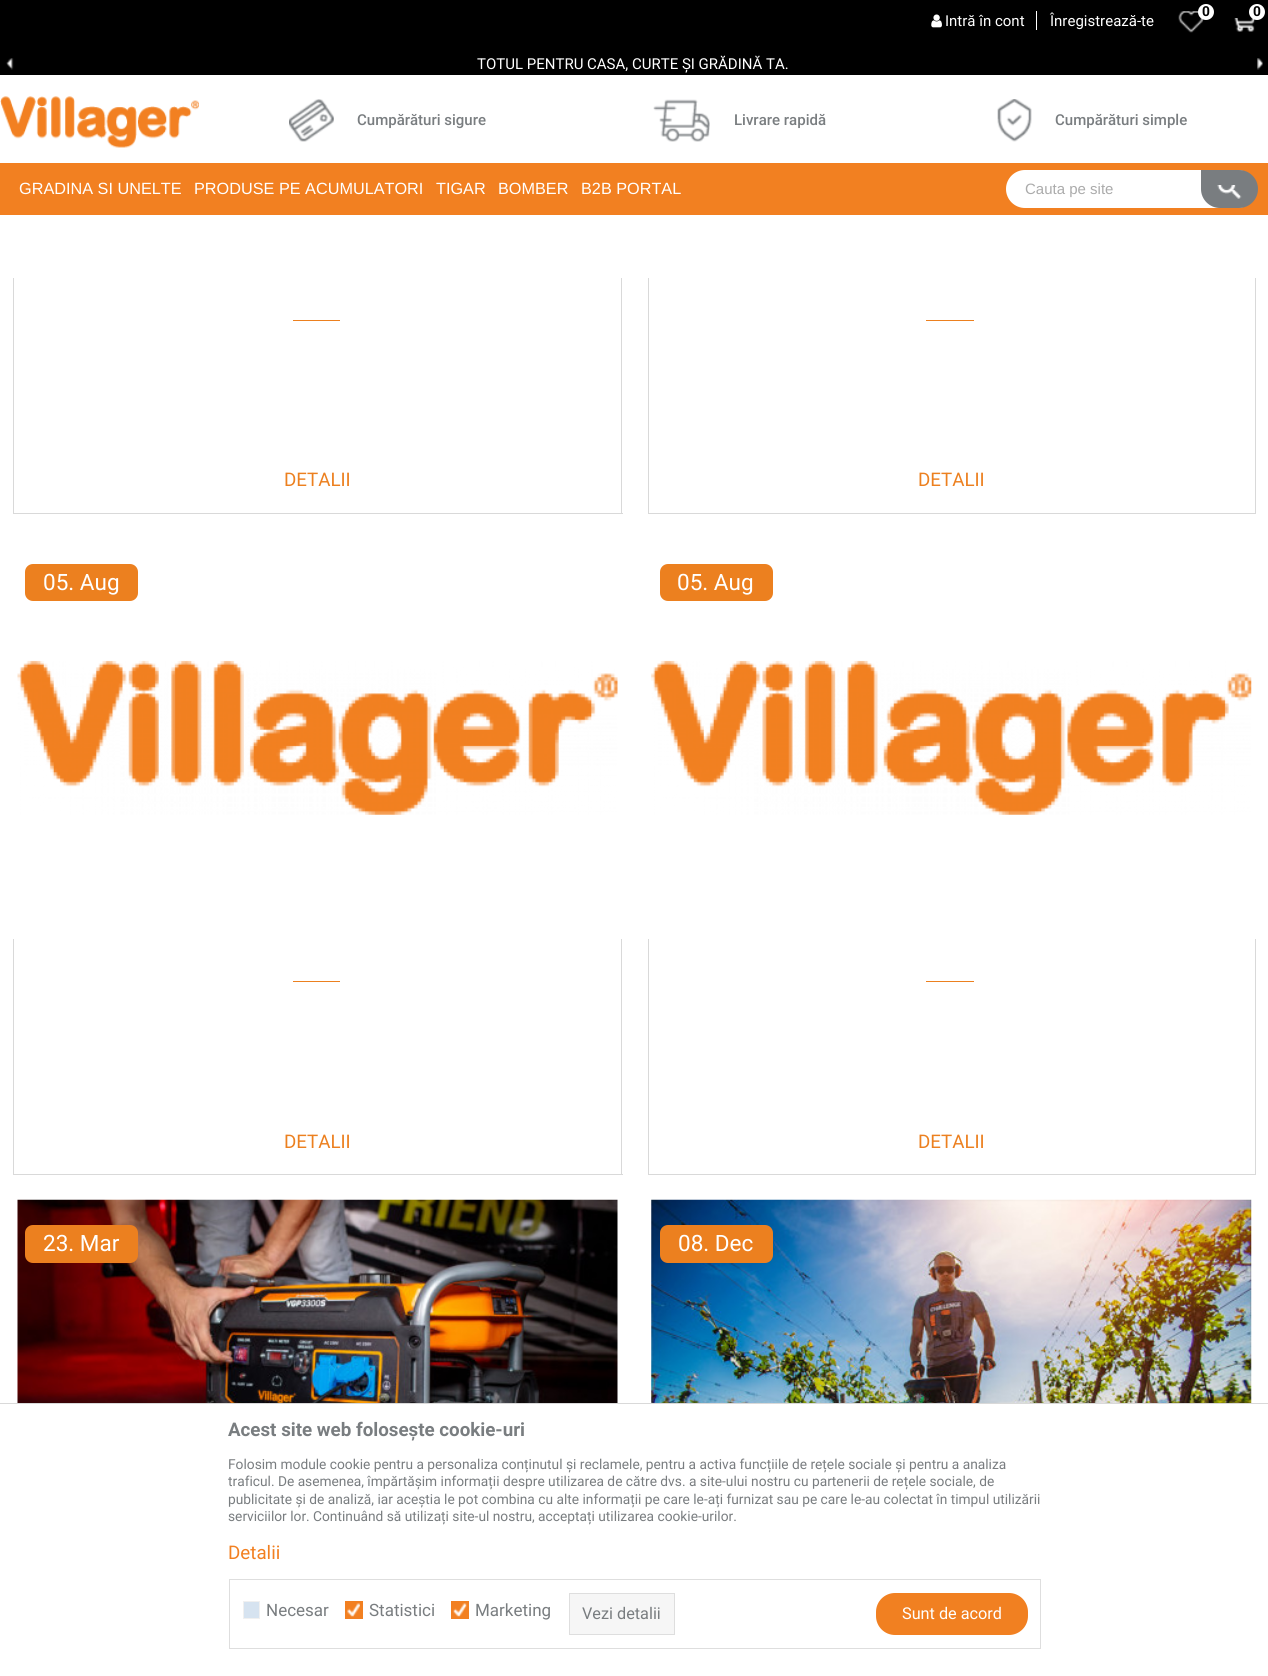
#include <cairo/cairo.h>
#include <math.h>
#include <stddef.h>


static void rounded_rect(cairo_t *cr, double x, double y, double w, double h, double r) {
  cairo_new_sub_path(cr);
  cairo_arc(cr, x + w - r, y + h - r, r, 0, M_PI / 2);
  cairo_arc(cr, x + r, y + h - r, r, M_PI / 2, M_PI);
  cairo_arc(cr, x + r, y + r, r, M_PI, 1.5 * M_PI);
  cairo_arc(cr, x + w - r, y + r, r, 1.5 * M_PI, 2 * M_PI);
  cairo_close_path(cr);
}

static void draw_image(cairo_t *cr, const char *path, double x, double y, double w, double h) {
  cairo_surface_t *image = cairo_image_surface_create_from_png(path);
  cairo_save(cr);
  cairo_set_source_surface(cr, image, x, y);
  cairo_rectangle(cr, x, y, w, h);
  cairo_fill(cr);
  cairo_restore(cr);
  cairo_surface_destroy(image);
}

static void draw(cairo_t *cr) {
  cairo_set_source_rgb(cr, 1, 1, 1);
  cairo_paint(cr);
  cairo_set_source_rgb(cr, 0, 0, 0);
  cairo_rectangle(cr, 0, 0, 1268, 75);
  cairo_fill(cr);
  draw_image(cr, "images/1.png", 931, 14, 11, 14);
  cairo_set_source_rgb(cr, 1, 1, 1);
  cairo_rectangle(cr, 1036, 11, 1, 19);
  cairo_fill(cr);
  draw_image(cr, "images/2.png", 1178, 11, 26, 22);
  cairo_arc(cr, 1206, 12, 8, 0, 2 * M_PI);
  cairo_fill(cr);
  draw_image(cr, "images/3.png", 1234, 18, 22, 14);
  cairo_arc(cr, 1257, 12, 8, 0, 2 * M_PI);
  cairo_fill(cr);
  draw_image(cr, "images/4.png", 6, 58, 8, 12);
  draw_image(cr, "images/5.png", 1257, 58, 6, 12);
  draw_image(cr, "images/6.png", 0, 96, 199, 52);
  draw_image(cr, "images/7.png", 289, 99, 45, 43);
  draw_image(cr, "images/8.png", 653, 99, 57, 43);
  draw_image(cr, "images/9.png", 997, 99, 35, 43);
  cairo_set_source_rgb(cr, 242 / 255.0, 128 / 255.0, 33 / 255.0);
  cairo_rectangle(cr, 0, 163, 1268, 52);
  cairo_fill(cr);
  cairo_set_source_rgb(cr, 1, 1, 1);
  rounded_rect(cr, 1006, 170, 250, 38, 19);
  cairo_fill(cr);
  cairo_set_source_rgb(cr, 121 / 255.0, 125 / 255.0, 128 / 255.0);
  cairo_new_path(cr);
  cairo_move_to(cr, 1201, 170);
  cairo_line_to(cr, 1239, 170);
  cairo_curve_to(cr, 1249.5, 170, 1258, 178.5, 1258, 189);
  cairo_curve_to(cr, 1258, 199.5, 1249.5, 208, 1239, 208);
  cairo_line_to(cr, 1220, 208);
  cairo_curve_to(cr, 1209.5, 208, 1201, 199.5, 1201, 189);
  cairo_close_path(cr);
  cairo_fill(cr);
  draw_image(cr, "images/10.png", 1217, 185, 25, 14);
  cairo_set_source_rgb(cr, 217 / 255.0, 217 / 255.0, 217 / 255.0);
  cairo_rectangle(cr, 621, 278, 1, 236);
  cairo_fill(cr);
  cairo_rectangle(cr, 13, 513, 610, 1);
  cairo_fill(cr);
  cairo_rectangle(cr, 13, 278, 1, 236);
  cairo_fill(cr);
  cairo_set_source_rgb(cr, 236 / 255.0, 128 / 255.0, 31 / 255.0);
  cairo_rectangle(cr, 293, 320, 47, 1);
  cairo_fill(cr);
  cairo_set_source_rgb(cr, 217 / 255.0, 217 / 255.0, 217 / 255.0);
  cairo_rectangle(cr, 1255, 278, 1, 236);
  cairo_fill(cr);
  cairo_rectangle(cr, 648, 513, 608, 1);
  cairo_fill(cr);
  cairo_rectangle(cr, 648, 278, 1, 236);
  cairo_fill(cr);
  cairo_set_source_rgb(cr, 236 / 255.0, 128 / 255.0, 31 / 255.0);
  cairo_rectangle(cr, 926, 320, 48, 1);
  cairo_fill(cr);
  cairo_set_source_rgb(cr, 217 / 255.0, 217 / 255.0, 217 / 255.0);
  cairo_rectangle(cr, 621, 939, 1, 236);
  cairo_fill(cr);
  cairo_rectangle(cr, 13, 1174, 610, 1);
  cairo_fill(cr);
  cairo_rectangle(cr, 13, 939, 1, 236);
  cairo_fill(cr);
  cairo_set_source_rgb(cr, 236 / 255.0, 128 / 255.0, 31 / 255.0);
  rounded_rect(cr, 25, 564, 113, 37, 8);
  cairo_fill(cr);
  cairo_rectangle(cr, 293, 981, 47, 1);
  cairo_fill(cr);
  draw_image(cr, "images/11.png", 17, 660, 601, 155);
  cairo_set_source_rgb(cr, 217 / 255.0, 217 / 255.0, 217 / 255.0);
  cairo_rectangle(cr, 1255, 939, 1, 236);
  cairo_fill(cr);
  cairo_rectangle(cr, 648, 1174, 608, 1);
  cairo_fill(cr);
  cairo_rectangle(cr, 648, 939, 1, 236);
  cairo_fill(cr);
  cairo_set_source_rgb(cr, 236 / 255.0, 128 / 255.0, 31 / 255.0);
  rounded_rect(cr, 660, 564, 113, 37, 8);
  cairo_fill(cr);
  cairo_rectangle(cr, 926, 981, 48, 1);
  cairo_fill(cr);
  draw_image(cr, "images/12.png", 651, 660, 601, 155);
  draw_image(cr, "images/13.png", 17, 1199, 601, 204);
  rounded_rect(cr, 25, 1225, 113, 38, 8);
  cairo_fill(cr);
  draw_image(cr, "images/14.png", 651, 1199, 601, 204);
  rounded_rect(cr, 660, 1225, 113, 38, 8);
  cairo_fill(cr);
  cairo_rectangle(cr, -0.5, 1403.5, 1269, 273);
  cairo_set_source_rgb(cr, 217 / 255.0, 217 / 255.0, 217 / 255.0);
  cairo_set_line_width(cr, 1);
  cairo_stroke(cr);
  cairo_rectangle(cr, 229.5, 1579.5, 811, 69);
  cairo_set_source_rgb(cr, 222 / 255.0, 222 / 255.0, 222 / 255.0);
  cairo_stroke(cr);
  cairo_set_source_rgb(cr, 214 / 255.0, 227 / 255.0, 240 / 255.0);
  cairo_rectangle(cr, 243.5, 1601.5, 16, 17);
  cairo_fill_preserve(cr);
  cairo_set_source_rgb(cr, 240 / 255.0, 240 / 255.0, 240 / 255.0);
  cairo_stroke(cr);
  cairo_set_source_rgb(cr, 242 / 255.0, 128 / 255.0, 33 / 255.0);
  cairo_rectangle(cr, 345, 1601, 18, 18);
  cairo_fill(cr);
  draw_image(cr, "images/15.png", 347, 1603, 13, 14);
  cairo_rectangle(cr, 451, 1601, 18, 18);
  cairo_fill(cr);
  draw_image(cr, "images/16.png", 453, 1603, 14, 14);
  cairo_set_source_rgb(cr, 246 / 255.0, 246 / 255.0, 246 / 255.0);
  cairo_rectangle(cr, 569.5, 1593.5, 105, 41);
  cairo_fill_preserve(cr);
  cairo_set_source_rgb(cr, 222 / 255.0, 222 / 255.0, 222 / 255.0);
  cairo_stroke(cr);
  cairo_set_source_rgb(cr, 241 / 255.0, 128 / 255.0, 33 / 255.0);
  rounded_rect(cr, 876, 1593, 152, 42, 19);
  cairo_fill(cr);
  cairo_select_font_face(cr, "Roboto", CAIRO_FONT_SLANT_NORMAL, CAIRO_FONT_WEIGHT_NORMAL);
  cairo_set_font_size(cr, 15);
  cairo_set_source_rgb(cr, 1, 1, 1);
  cairo_move_to(cr, 945, 26);
  cairo_show_text(cr, "Intră în cont");
  cairo_move_to(cr, 1050, 26);
  cairo_show_text(cr, "Înregistrează-te");
  cairo_select_font_face(cr, "Roboto", CAIRO_FONT_SLANT_NORMAL, CAIRO_FONT_WEIGHT_BOLD);
  cairo_set_font_size(cr, 13.75);
  cairo_set_source_rgb(cr, 0, 0, 0);
  cairo_move_to(cr, 1202, 16);
  cairo_show_text(cr, "0");
  cairo_move_to(cr, 1253, 16);
  cairo_show_text(cr, "0");
  cairo_select_font_face(cr, "Roboto", CAIRO_FONT_SLANT_NORMAL, CAIRO_FONT_WEIGHT_NORMAL);
  cairo_set_font_size(cr, 15);
  cairo_set_source_rgb(cr, 1, 1, 1);
  cairo_move_to(cr, 477, 69);
  cairo_show_text(cr, "TOTUL PENTRU CASA, CURTE ȘI GRĂDINĂ TA.");
  cairo_select_font_face(cr, "Roboto Medium", CAIRO_FONT_SLANT_NORMAL, CAIRO_FONT_WEIGHT_NORMAL);
  cairo_set_source_rgb(cr, 121 / 255.0, 125 / 255.0, 128 / 255.0);
  cairo_move_to(cr, 357, 125);
  cairo_show_text(cr, "Cumpărături sigure");
  cairo_move_to(cr, 734, 125);
  cairo_show_text(cr, "Livrare rapidă");
  cairo_move_to(cr, 1055, 125);
  cairo_show_text(cr, "Cumpărături simple");
  cairo_select_font_face(cr, "Liberation Sans", CAIRO_FONT_SLANT_NORMAL, CAIRO_FONT_WEIGHT_NORMAL);
  cairo_set_font_size(cr, 16.25);
  cairo_set_source_rgb(cr, 1, 1, 1);
  cairo_move_to(cr, 19, 194);
  cairo_show_text(cr, "GRADINA SI UNELTE");
  cairo_move_to(cr, 194, 194);
  cairo_show_text(cr, "PRODUSE PE ACUMULATORI");
  cairo_move_to(cr, 436, 194);
  cairo_show_text(cr, "TIGAR");
  cairo_move_to(cr, 498, 194);
  cairo_show_text(cr, "BOMBER");
  cairo_move_to(cr, 581, 194);
  cairo_show_text(cr, "B2B PORTAL");
  cairo_set_font_size(cr, 15);
  cairo_set_source_rgb(cr, 171 / 255.0, 171 / 255.0, 171 / 255.0);
  cairo_move_to(cr, 1025, 194);
  cairo_show_text(cr, "Cauta pe site");
  cairo_select_font_face(cr, "Roboto", CAIRO_FONT_SLANT_NORMAL, CAIRO_FONT_WEIGHT_NORMAL);
  cairo_set_font_size(cr, 18.75);
  cairo_set_source_rgb(cr, 236 / 255.0, 128 / 255.0, 31 / 255.0);
  cairo_move_to(cr, 284, 486);
  cairo_show_text(cr, "DETALII");
  cairo_move_to(cr, 918, 486);
  cairo_show_text(cr, "DETALII");
  cairo_set_font_size(cr, 22.5);
  cairo_set_source_rgb(cr, 1, 1, 1);
  cairo_move_to(cr, 43, 590);
  cairo_show_text(cr, "05. Aug");
  cairo_set_font_size(cr, 18.75);
  cairo_set_source_rgb(cr, 236 / 255.0, 128 / 255.0, 31 / 255.0);
  cairo_move_to(cr, 284, 1148);
  cairo_show_text(cr, "DETALII");
  cairo_set_font_size(cr, 22.5);
  cairo_set_source_rgb(cr, 1, 1, 1);
  cairo_move_to(cr, 677, 590);
  cairo_show_text(cr, "05. Aug");
  cairo_set_font_size(cr, 18.75);
  cairo_set_source_rgb(cr, 236 / 255.0, 128 / 255.0, 31 / 255.0);
  cairo_move_to(cr, 918, 1148);
  cairo_show_text(cr, "DETALII");
  cairo_set_font_size(cr, 22.5);
  cairo_set_source_rgb(cr, 1, 1, 1);
  cairo_move_to(cr, 43, 1251);
  cairo_show_text(cr, "23. Mar");
  cairo_move_to(cr, 678, 1251);
  cairo_show_text(cr, "08. Dec");
  cairo_select_font_face(cr, "Roboto", CAIRO_FONT_SLANT_NORMAL, CAIRO_FONT_WEIGHT_BOLD);
  cairo_set_font_size(cr, 18.75);
  cairo_set_source_rgb(cr, 121 / 255.0, 125 / 255.0, 128 / 255.0);
  cairo_move_to(cr, 228, 1436);
  cairo_show_text(cr, "Acest site web folosește cookie-uri");
  cairo_select_font_face(cr, "Roboto", CAIRO_FONT_SLANT_NORMAL, CAIRO_FONT_WEIGHT_NORMAL);
  cairo_set_font_size(cr, 13.75);
  cairo_move_to(cr, 228, 1469);
  cairo_show_text(cr, "Folosim module cookie pentru a personaliza conținutul și reclamele, pentru a activa funcțiile de rețele sociale și pentru a analiza");
  cairo_move_to(cr, 228, 1486);
  cairo_show_text(cr, "traficul. De asemenea, împărtășim informații despre utilizarea de către dvs. a site-ului nostru cu partenerii de rețele sociale, de");
  cairo_move_to(cr, 228, 1504);
  cairo_show_text(cr, "publicitate și de analiză, iar aceștia le pot combina cu alte informații pe care le-ați furnizat sau pe care le-au colectat în timpul utilizării");
  cairo_move_to(cr, 228, 1521);
  cairo_show_text(cr, "serviciilor lor. Continuând să utilizați site-ul nostru, acceptați utilizarea cookie-urilor.");
  cairo_set_font_size(cr, 18.75);
  cairo_set_source_rgb(cr, 242 / 255.0, 128 / 255.0, 33 / 255.0);
  cairo_move_to(cr, 228, 1559);
  cairo_show_text(cr, "Detalii");
  cairo_set_font_size(cr, 17);
  cairo_set_source_rgb(cr, 121 / 255.0, 125 / 255.0, 128 / 255.0);
  cairo_move_to(cr, 266, 1616);
  cairo_show_text(cr, "Necesar");
  cairo_move_to(cr, 369, 1616);
  cairo_show_text(cr, "Statistici");
  cairo_move_to(cr, 475, 1616);
  cairo_show_text(cr, "Marketing");
  cairo_set_font_size(cr, 16.25);
  cairo_move_to(cr, 582, 1619);
  cairo_show_text(cr, "Vezi detalii");
  cairo_set_source_rgb(cr, 1, 1, 1);
  cairo_move_to(cr, 902, 1619);
  cairo_show_text(cr, "Sunt de acord");
}

int main(void) {
  cairo_surface_t *surface = cairo_image_surface_create(CAIRO_FORMAT_RGB24, 1268, 1676);
  cairo_t *cr = cairo_create(surface);
  cairo_font_options_t *options = cairo_font_options_create();
  cairo_font_options_set_hint_metrics(options, CAIRO_HINT_METRICS_OFF);
  cairo_font_options_set_hint_style(options, CAIRO_HINT_STYLE_NONE);
  cairo_set_font_options(cr, options);
  cairo_set_miter_limit(cr, 4);
  draw(cr);
  cairo_surface_write_to_png(surface, "out.png");
  cairo_font_options_destroy(options);
  cairo_destroy(cr);
  cairo_surface_destroy(surface);
  return 0;
}
